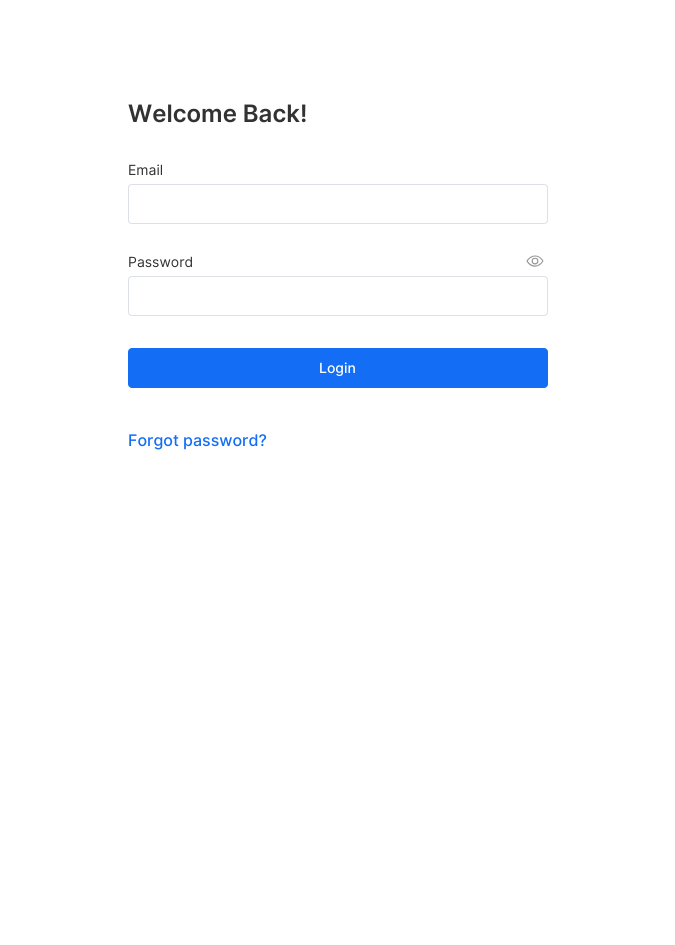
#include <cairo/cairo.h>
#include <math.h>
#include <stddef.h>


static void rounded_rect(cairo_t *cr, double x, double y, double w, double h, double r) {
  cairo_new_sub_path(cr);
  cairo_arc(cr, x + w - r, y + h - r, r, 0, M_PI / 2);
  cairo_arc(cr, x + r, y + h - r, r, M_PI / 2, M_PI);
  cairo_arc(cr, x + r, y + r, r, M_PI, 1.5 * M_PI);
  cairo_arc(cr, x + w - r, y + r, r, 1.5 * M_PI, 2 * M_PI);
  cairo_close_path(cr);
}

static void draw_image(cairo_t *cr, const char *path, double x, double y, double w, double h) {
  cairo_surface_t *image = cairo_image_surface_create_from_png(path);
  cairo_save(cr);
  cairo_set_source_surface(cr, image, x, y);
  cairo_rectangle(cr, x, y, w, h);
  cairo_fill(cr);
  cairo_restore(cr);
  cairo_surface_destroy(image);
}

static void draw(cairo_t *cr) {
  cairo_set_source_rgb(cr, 1, 1, 1);
  cairo_paint(cr);
  rounded_rect(cr, 128.5, 184.5, 419, 39, 3.5);
  cairo_set_source_rgb(cr, 220 / 255.0, 223 / 255.0, 230 / 255.0);
  cairo_set_line_width(cr, 1);
  cairo_stroke(cr);
  draw_image(cr, "images/1.png", 526, 255, 18, 12);
  rounded_rect(cr, 128.5, 276.5, 419, 39, 3.5);
  cairo_stroke(cr);
  cairo_set_source_rgb(cr, 20 / 255.0, 110 / 255.0, 245 / 255.0);
  rounded_rect(cr, 128.5, 348.5, 419, 39, 3.5);
  cairo_fill_preserve(cr);
  cairo_stroke(cr);
  cairo_select_font_face(cr, "Inter SemiBold", CAIRO_FONT_SLANT_NORMAL, CAIRO_FONT_WEIGHT_NORMAL);
  cairo_set_font_size(cr, 24);
  cairo_set_source_rgb(cr, 50 / 255.0, 50 / 255.0, 50 / 255.0);
  cairo_move_to(cr, 128, 122);
  cairo_show_text(cr, "Welcome Back!");
  cairo_select_font_face(cr, "Inter", CAIRO_FONT_SLANT_NORMAL, CAIRO_FONT_WEIGHT_NORMAL);
  cairo_set_font_size(cr, 14);
  cairo_move_to(cr, 128, 175);
  cairo_show_text(cr, "Email");
  cairo_move_to(cr, 128, 267);
  cairo_show_text(cr, "Password");
  cairo_select_font_face(cr, "Inter Medium", CAIRO_FONT_SLANT_NORMAL, CAIRO_FONT_WEIGHT_NORMAL);
  cairo_set_source_rgb(cr, 1, 1, 1);
  cairo_move_to(cr, 319, 373);
  cairo_show_text(cr, "Login");
  cairo_set_font_size(cr, 16);
  cairo_set_source_rgb(cr, 20 / 255.0, 110 / 255.0, 245 / 255.0);
  cairo_move_to(cr, 128, 446);
  cairo_show_text(cr, "Forgot password?");
}

int main(void) {
  cairo_surface_t *surface = cairo_image_surface_create(CAIRO_FORMAT_RGB24, 675, 945);
  cairo_t *cr = cairo_create(surface);
  cairo_font_options_t *options = cairo_font_options_create();
  cairo_font_options_set_hint_metrics(options, CAIRO_HINT_METRICS_OFF);
  cairo_font_options_set_hint_style(options, CAIRO_HINT_STYLE_NONE);
  cairo_set_font_options(cr, options);
  cairo_set_miter_limit(cr, 4);
  draw(cr);
  cairo_surface_write_to_png(surface, "out.png");
  cairo_font_options_destroy(options);
  cairo_destroy(cr);
  cairo_surface_destroy(surface);
  return 0;
}
